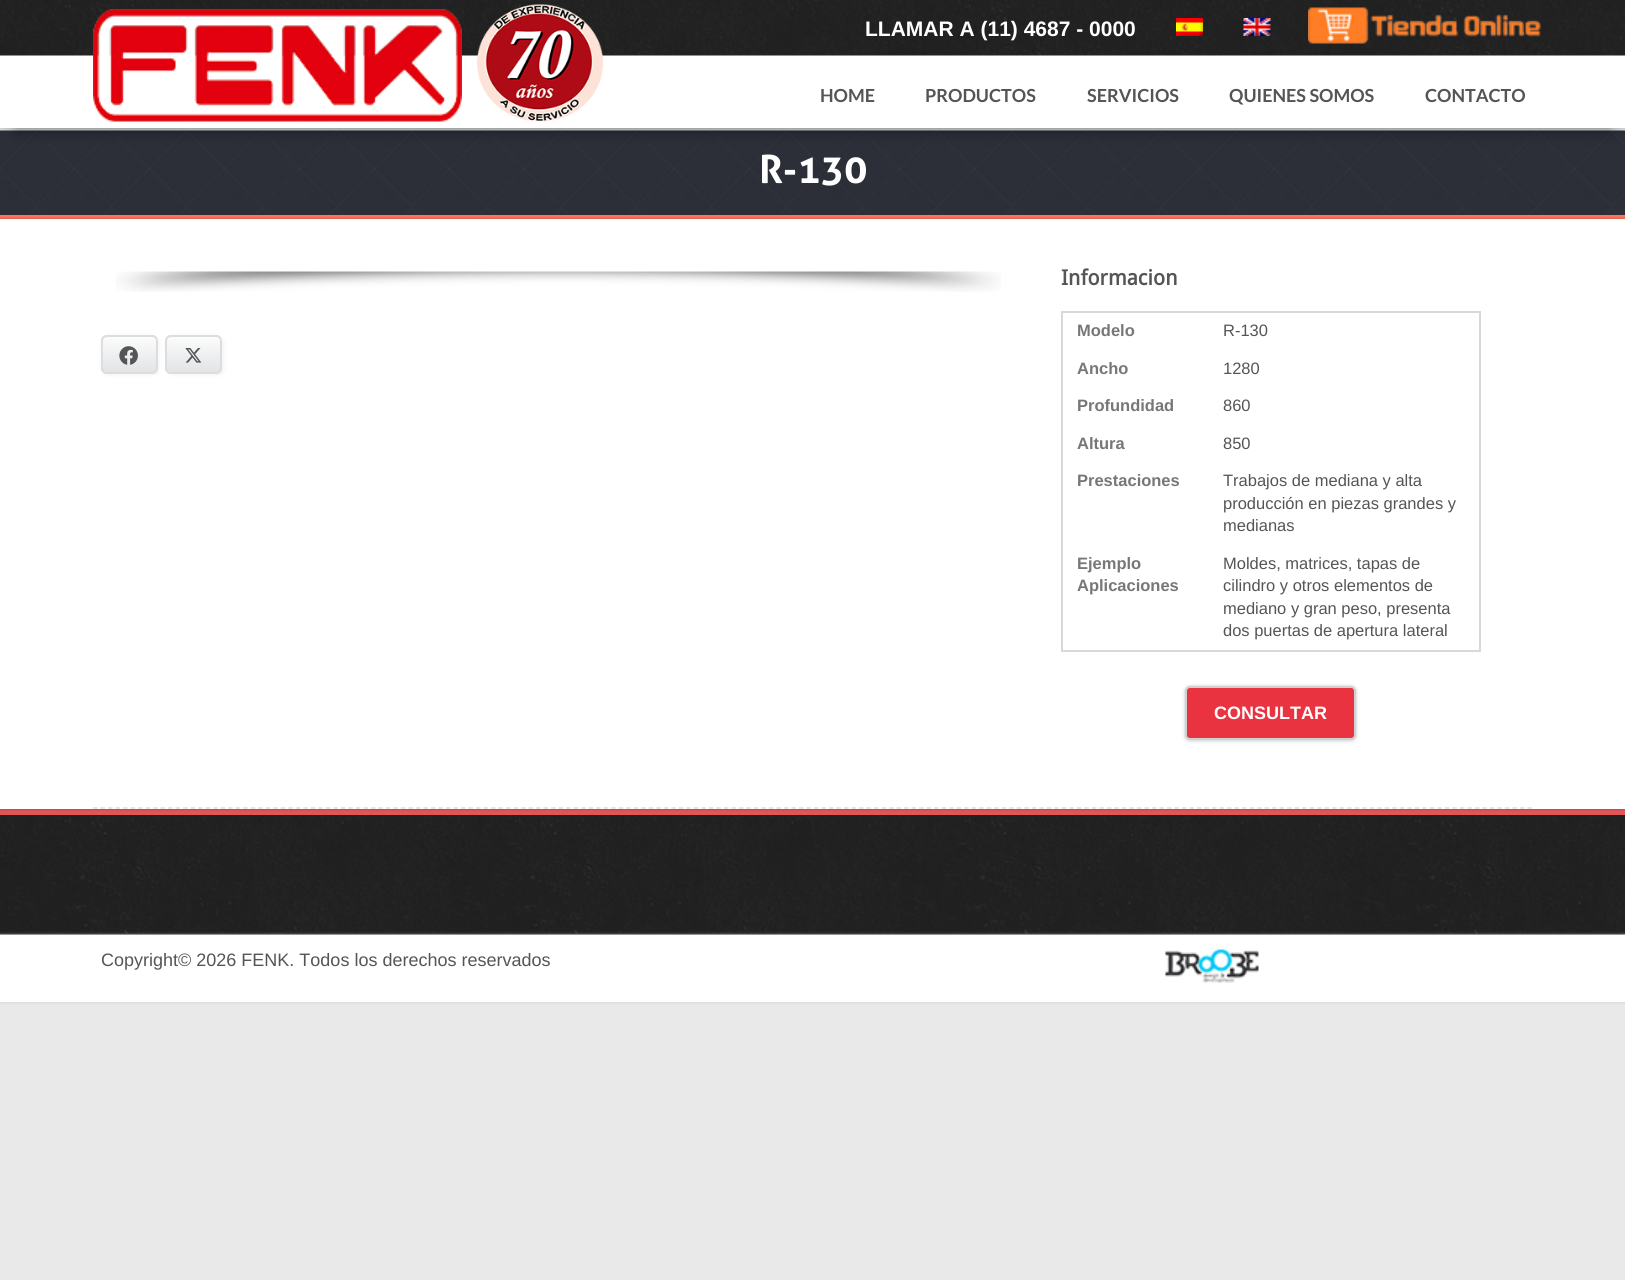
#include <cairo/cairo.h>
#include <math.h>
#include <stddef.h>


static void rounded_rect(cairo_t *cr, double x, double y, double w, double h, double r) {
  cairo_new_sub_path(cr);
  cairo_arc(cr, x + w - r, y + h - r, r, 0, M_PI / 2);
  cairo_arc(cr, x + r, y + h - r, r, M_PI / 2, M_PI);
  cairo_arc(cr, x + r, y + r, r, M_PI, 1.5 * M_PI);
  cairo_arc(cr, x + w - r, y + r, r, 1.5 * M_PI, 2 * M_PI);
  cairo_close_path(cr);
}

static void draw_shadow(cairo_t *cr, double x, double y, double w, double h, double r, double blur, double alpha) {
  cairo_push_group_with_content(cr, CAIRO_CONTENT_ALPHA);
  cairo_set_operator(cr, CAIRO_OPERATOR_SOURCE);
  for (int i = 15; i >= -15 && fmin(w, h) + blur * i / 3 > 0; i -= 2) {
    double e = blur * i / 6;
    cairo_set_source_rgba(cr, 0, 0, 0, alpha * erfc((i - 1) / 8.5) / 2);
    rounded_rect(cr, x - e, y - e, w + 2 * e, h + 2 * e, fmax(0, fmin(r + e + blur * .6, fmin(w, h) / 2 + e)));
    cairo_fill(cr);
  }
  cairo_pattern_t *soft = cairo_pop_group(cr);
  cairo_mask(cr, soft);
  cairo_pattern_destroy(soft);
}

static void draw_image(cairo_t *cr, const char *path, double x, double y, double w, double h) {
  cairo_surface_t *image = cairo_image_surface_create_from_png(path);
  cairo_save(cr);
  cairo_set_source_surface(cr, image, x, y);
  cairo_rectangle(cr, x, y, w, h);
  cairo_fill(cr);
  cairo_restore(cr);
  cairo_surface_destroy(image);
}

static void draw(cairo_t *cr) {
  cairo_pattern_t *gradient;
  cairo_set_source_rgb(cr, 233 / 255.0, 233 / 255.0, 233 / 255.0);
  cairo_paint(cr);
  draw_image(cr, "images/7.png", 0, 130, 1625, 85);
  cairo_set_source_rgb(cr, 0, 0, 0);
  draw_shadow(cr, 0, 2, 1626, 127, 0, 3, 0.2);
  draw_shadow(cr, 15, 35, 1596, 97, 0, 7.5, 0.3);
  cairo_set_source_rgb(cr, 1, 1, 1);
  cairo_rectangle(cr, 0, 55, 1625, 73);
  cairo_fill(cr);
  draw_image(cr, "images/1.png", 0, 0, 1625, 56);
  draw_image(cr, "images/2.png", 93, 9, 369, 113);
  draw_image(cr, "images/3.png", 477, 4, 126, 118);
  draw_image(cr, "images/4.png", 1176, 18, 27, 18);
  draw_image(cr, "images/5.png", 1243, 18, 28, 18);
  draw_image(cr, "images/6.png", 1308, 7, 233, 37);
  cairo_set_source_rgb(cr, 1, 114 / 255.0, 91 / 255.0);
  cairo_rectangle(cr, 0, 215, 1625, 4);
  cairo_fill(cr);
  cairo_set_source_rgb(cr, 187 / 255.0, 187 / 255.0, 187 / 255.0);
  draw_shadow(cr, 0, 812, 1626, 126, 0, 4, 1);
  draw_shadow(cr, 0, 806, 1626, 126, 0, 4, 1);
  cairo_set_source_rgb(cr, 227 / 255.0, 86 / 255.0, 86 / 255.0);
  cairo_rectangle(cr, 0, 809, 1625, 6);
  cairo_fill(cr);
  cairo_set_source_rgb(cr, 0, 0, 0);
  draw_shadow(cr, 0, 219, 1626, 590, 0, 1.5, 0.3);
  cairo_set_source_rgb(cr, 1, 1, 1);
  cairo_rectangle(cr, 0, 219, 1625, 590);
  cairo_fill(cr);
  cairo_new_path(cr);
  cairo_move_to(cr, 93, 808);
  cairo_line_to(cr, 1533, 808);
  cairo_set_source_rgb(cr, 221 / 255.0, 221 / 255.0, 221 / 255.0);
  cairo_set_line_width(cr, 1.5);
  cairo_set_dash(cr, (double[]){4.5, 3.01}, 2, 0);
  cairo_stroke(cr);
  draw_image(cr, "images/8.png", 116, 271, 885, 21);
  cairo_set_source_rgb(cr, 0, 0, 0);
  draw_shadow(cr, 102, 336, 57, 39, 6, 2, 0.05);
  cairo_set_source_rgb(cr, 226 / 255.0, 228 / 255.0, 230 / 255.0);
  rounded_rect(cr, 101, 335, 57, 39, 6);
  cairo_fill(cr);
  cairo_save(cr);
  rounded_rect(cr, 101, 335, 57, 39, 6);
  cairo_clip(cr);
  gradient = cairo_pattern_create_linear(129, 336, 129, 372);
  cairo_pattern_add_color_stop_rgba(gradient, 0, 1, 1, 1, 0.9);
  cairo_pattern_add_color_stop_rgba(gradient, 1, 1, 1, 1, 0);
  cairo_set_source(cr, gradient);
  cairo_pattern_destroy(gradient);
  cairo_rectangle(cr, 101, 336, 57, 35);
  cairo_fill(cr);
  cairo_restore(cr);
  rounded_rect(cr, 102, 336, 55, 37, 5);
  cairo_set_source_rgb(cr, 221 / 255.0, 221 / 255.0, 221 / 255.0);
  cairo_set_line_width(cr, 2);
  cairo_set_dash(cr, NULL, 0, 0);
  cairo_stroke(cr);
  draw_image(cr, "images/9.png", 119, 346, 19, 19);
  cairo_set_source_rgb(cr, 0, 0, 0);
  draw_shadow(cr, 167, 336, 57, 39, 6, 2, 0.05);
  cairo_set_source_rgb(cr, 226 / 255.0, 228 / 255.0, 230 / 255.0);
  rounded_rect(cr, 165, 335, 57, 39, 6);
  cairo_fill(cr);
  cairo_save(cr);
  rounded_rect(cr, 165, 335, 57, 39, 6);
  cairo_clip(cr);
  gradient = cairo_pattern_create_linear(194, 336, 194, 372);
  cairo_pattern_add_color_stop_rgba(gradient, 0, 1, 1, 1, 0.9);
  cairo_pattern_add_color_stop_rgba(gradient, 1, 1, 1, 1, 0);
  cairo_set_source(cr, gradient);
  cairo_pattern_destroy(gradient);
  cairo_rectangle(cr, 165, 336, 57, 35);
  cairo_fill(cr);
  cairo_restore(cr);
  rounded_rect(cr, 166, 336, 55, 37, 5);
  cairo_set_source_rgb(cr, 221 / 255.0, 221 / 255.0, 221 / 255.0);
  cairo_stroke(cr);
  draw_image(cr, "images/10.png", 185, 348, 17, 15);
  cairo_set_source_rgb(cr, 216 / 255.0, 216 / 255.0, 216 / 255.0);
  cairo_rectangle(cr, 1061, 311, 420, 2);
  cairo_fill(cr);
  cairo_rectangle(cr, 1479, 311, 2, 340);
  cairo_fill(cr);
  cairo_rectangle(cr, 1061, 650, 420, 2);
  cairo_fill(cr);
  cairo_rectangle(cr, 1061, 311, 2, 340);
  cairo_fill(cr);
  cairo_set_source_rgb(cr, 213 / 255.0, 213 / 255.0, 213 / 255.0);
  draw_shadow(cr, 1185, 687, 171, 54, 5, 2, 1);
  draw_shadow(cr, 1185, 686, 171, 54, 5, 1, 1);
  cairo_set_source_rgb(cr, 233 / 255.0, 51 / 255.0, 64 / 255.0);
  rounded_rect(cr, 1186, 687, 169, 52, 4);
  cairo_fill_preserve(cr);
  cairo_set_source_rgb(cr, 207 / 255.0, 208 / 255.0, 210 / 255.0);
  cairo_stroke(cr);
  draw_image(cr, "images/11.png", 0, 815, 1625, 120);
  cairo_set_source_rgb(cr, 204 / 255.0, 204 / 255.0, 204 / 255.0);
  draw_shadow(cr, 0, 935, 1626, 67, 0, 1.5, 1);
  cairo_set_source_rgb(cr, 1, 1, 1);
  cairo_rectangle(cr, 0, 935, 1625, 67);
  cairo_fill(cr);
  draw_image(cr, "images/12.png", 1165, 949, 94, 34);
  cairo_select_font_face(cr, "Liberation Sans", CAIRO_FONT_SLANT_NORMAL, CAIRO_FONT_WEIGHT_BOLD);
  cairo_set_font_size(cr, 21);
  cairo_move_to(cr, 865, 36);
  cairo_show_text(cr, "LLAMAR A (11) 4687 - 0000");
  cairo_select_font_face(cr, "Lato", CAIRO_FONT_SLANT_NORMAL, CAIRO_FONT_WEIGHT_BOLD);
  cairo_set_font_size(cr, 18);
  cairo_set_source_rgb(cr, 85 / 255.0, 85 / 255.0, 85 / 255.0);
  cairo_move_to(cr, 820, 102);
  cairo_show_text(cr, "HOME");
  cairo_move_to(cr, 925, 102);
  cairo_show_text(cr, "PRODUCTOS");
  cairo_move_to(cr, 1087, 102);
  cairo_show_text(cr, "SERVICIOS");
  cairo_move_to(cr, 1229, 102);
  cairo_show_text(cr, "QUIENES SOMOS");
  cairo_move_to(cr, 1425, 102);
  cairo_show_text(cr, "CONTACTO");
  cairo_select_font_face(cr, "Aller", CAIRO_FONT_SLANT_NORMAL, CAIRO_FONT_WEIGHT_BOLD);
  cairo_set_font_size(cr, 39);
  cairo_set_source_rgb(cr, 1, 1, 1);
  cairo_move_to(cr, 759, 183);
  cairo_show_text(cr, "R-130");
  cairo_select_font_face(cr, "Droid Sans", CAIRO_FONT_SLANT_NORMAL, CAIRO_FONT_WEIGHT_BOLD);
  cairo_set_font_size(cr, 21);
  cairo_set_source_rgb(cr, 85 / 255.0, 85 / 255.0, 85 / 255.0);
  cairo_move_to(cr, 1061, 285);
  cairo_show_text(cr, "Informacion");
  cairo_select_font_face(cr, "Liberation Sans", CAIRO_FONT_SLANT_NORMAL, CAIRO_FONT_WEIGHT_BOLD);
  cairo_set_font_size(cr, 16.5);
  cairo_set_source_rgb(cr, 119 / 255.0, 119 / 255.0, 119 / 255.0);
  cairo_move_to(cr, 1077, 336);
  cairo_show_text(cr, "Modelo");
  cairo_select_font_face(cr, "Liberation Sans", CAIRO_FONT_SLANT_NORMAL, CAIRO_FONT_WEIGHT_NORMAL);
  cairo_set_source_rgb(cr, 85 / 255.0, 85 / 255.0, 85 / 255.0);
  cairo_move_to(cr, 1223, 336);
  cairo_show_text(cr, "R-130");
  cairo_select_font_face(cr, "Liberation Sans", CAIRO_FONT_SLANT_NORMAL, CAIRO_FONT_WEIGHT_BOLD);
  cairo_set_source_rgb(cr, 119 / 255.0, 119 / 255.0, 119 / 255.0);
  cairo_move_to(cr, 1077, 374);
  cairo_show_text(cr, "Ancho");
  cairo_select_font_face(cr, "Liberation Sans", CAIRO_FONT_SLANT_NORMAL, CAIRO_FONT_WEIGHT_NORMAL);
  cairo_set_source_rgb(cr, 85 / 255.0, 85 / 255.0, 85 / 255.0);
  cairo_move_to(cr, 1223, 374);
  cairo_show_text(cr, "1280");
  cairo_select_font_face(cr, "Liberation Sans", CAIRO_FONT_SLANT_NORMAL, CAIRO_FONT_WEIGHT_BOLD);
  cairo_set_source_rgb(cr, 119 / 255.0, 119 / 255.0, 119 / 255.0);
  cairo_move_to(cr, 1077, 411);
  cairo_show_text(cr, "Profundidad");
  cairo_select_font_face(cr, "Liberation Sans", CAIRO_FONT_SLANT_NORMAL, CAIRO_FONT_WEIGHT_NORMAL);
  cairo_set_source_rgb(cr, 85 / 255.0, 85 / 255.0, 85 / 255.0);
  cairo_move_to(cr, 1223, 411);
  cairo_show_text(cr, "860");
  cairo_select_font_face(cr, "Liberation Sans", CAIRO_FONT_SLANT_NORMAL, CAIRO_FONT_WEIGHT_BOLD);
  cairo_set_source_rgb(cr, 119 / 255.0, 119 / 255.0, 119 / 255.0);
  cairo_move_to(cr, 1077, 449);
  cairo_show_text(cr, "Altura");
  cairo_select_font_face(cr, "Liberation Sans", CAIRO_FONT_SLANT_NORMAL, CAIRO_FONT_WEIGHT_NORMAL);
  cairo_set_source_rgb(cr, 85 / 255.0, 85 / 255.0, 85 / 255.0);
  cairo_move_to(cr, 1223, 449);
  cairo_show_text(cr, "850");
  cairo_select_font_face(cr, "Liberation Sans", CAIRO_FONT_SLANT_NORMAL, CAIRO_FONT_WEIGHT_BOLD);
  cairo_set_source_rgb(cr, 119 / 255.0, 119 / 255.0, 119 / 255.0);
  cairo_move_to(cr, 1077, 486);
  cairo_show_text(cr, "Prestaciones");
  cairo_select_font_face(cr, "Liberation Sans", CAIRO_FONT_SLANT_NORMAL, CAIRO_FONT_WEIGHT_NORMAL);
  cairo_set_source_rgb(cr, 85 / 255.0, 85 / 255.0, 85 / 255.0);
  cairo_move_to(cr, 1223, 486);
  cairo_show_text(cr, "Trabajos de mediana y alta");
  cairo_move_to(cr, 1223, 509);
  cairo_show_text(cr, "producción en piezas grandes y");
  cairo_move_to(cr, 1223, 531);
  cairo_show_text(cr, "medianas");
  cairo_select_font_face(cr, "Liberation Sans", CAIRO_FONT_SLANT_NORMAL, CAIRO_FONT_WEIGHT_BOLD);
  cairo_set_source_rgb(cr, 119 / 255.0, 119 / 255.0, 119 / 255.0);
  cairo_move_to(cr, 1077, 569);
  cairo_show_text(cr, "Ejemplo");
  cairo_move_to(cr, 1077, 591);
  cairo_show_text(cr, "Aplicaciones");
  cairo_select_font_face(cr, "Liberation Sans", CAIRO_FONT_SLANT_NORMAL, CAIRO_FONT_WEIGHT_NORMAL);
  cairo_set_source_rgb(cr, 85 / 255.0, 85 / 255.0, 85 / 255.0);
  cairo_move_to(cr, 1223, 569);
  cairo_show_text(cr, "Moldes, matrices, tapas de");
  cairo_move_to(cr, 1223, 591);
  cairo_show_text(cr, "cilindro y otros elementos de");
  cairo_move_to(cr, 1223, 614);
  cairo_show_text(cr, "mediano y gran peso, presenta");
  cairo_move_to(cr, 1223, 636);
  cairo_show_text(cr, "dos puertas de apertura lateral");
  cairo_select_font_face(cr, "Liberation Sans", CAIRO_FONT_SLANT_NORMAL, CAIRO_FONT_WEIGHT_BOLD);
  cairo_set_font_size(cr, 18);
  cairo_set_source_rgb(cr, 1, 1, 1);
  cairo_move_to(cr, 1214, 719);
  cairo_show_text(cr, "CONSULTAR");
  cairo_select_font_face(cr, "Liberation Sans", CAIRO_FONT_SLANT_NORMAL, CAIRO_FONT_WEIGHT_NORMAL);
  cairo_set_source_rgb(cr, 85 / 255.0, 85 / 255.0, 85 / 255.0);
  cairo_move_to(cr, 101, 966);
  cairo_show_text(cr, "Copyright© 2026 FENK. Todos los derechos reservados");
}

int main(void) {
  cairo_surface_t *surface = cairo_image_surface_create(CAIRO_FORMAT_RGB24, 1625, 1280);
  cairo_t *cr = cairo_create(surface);
  cairo_font_options_t *options = cairo_font_options_create();
  cairo_font_options_set_hint_metrics(options, CAIRO_HINT_METRICS_OFF);
  cairo_font_options_set_hint_style(options, CAIRO_HINT_STYLE_NONE);
  cairo_set_font_options(cr, options);
  cairo_set_miter_limit(cr, 4);
  draw(cr);
  cairo_surface_write_to_png(surface, "out.png");
  cairo_font_options_destroy(options);
  cairo_destroy(cr);
  cairo_surface_destroy(surface);
  return 0;
}
